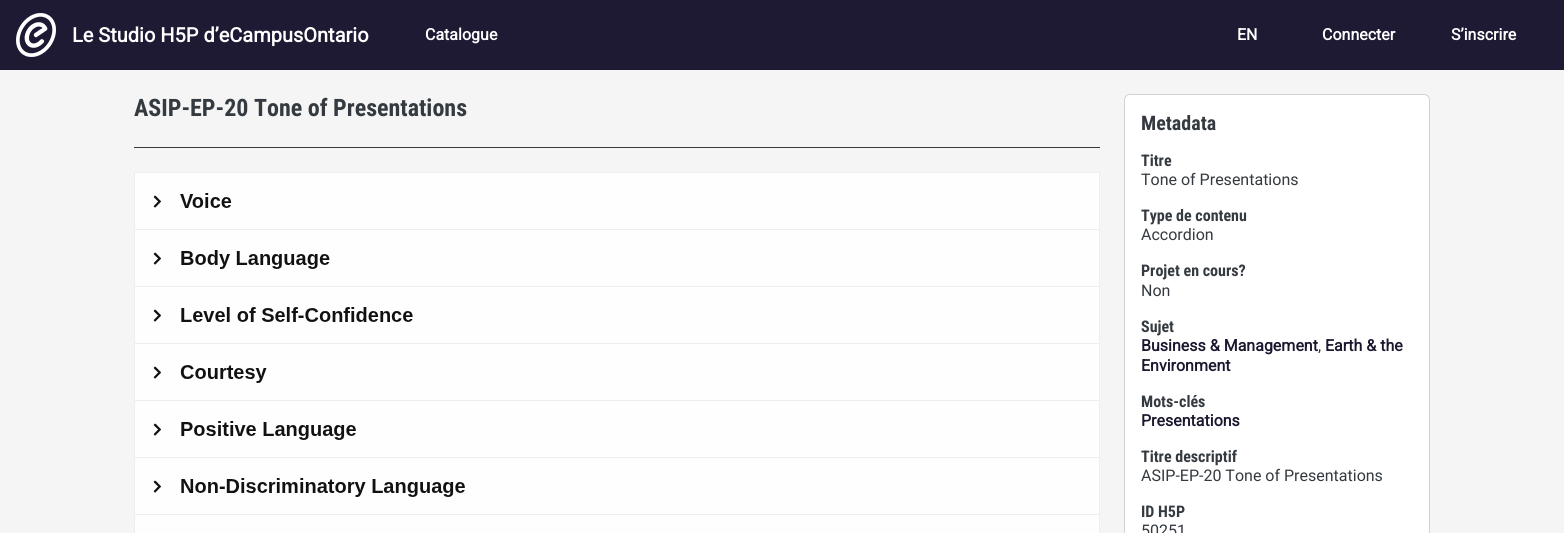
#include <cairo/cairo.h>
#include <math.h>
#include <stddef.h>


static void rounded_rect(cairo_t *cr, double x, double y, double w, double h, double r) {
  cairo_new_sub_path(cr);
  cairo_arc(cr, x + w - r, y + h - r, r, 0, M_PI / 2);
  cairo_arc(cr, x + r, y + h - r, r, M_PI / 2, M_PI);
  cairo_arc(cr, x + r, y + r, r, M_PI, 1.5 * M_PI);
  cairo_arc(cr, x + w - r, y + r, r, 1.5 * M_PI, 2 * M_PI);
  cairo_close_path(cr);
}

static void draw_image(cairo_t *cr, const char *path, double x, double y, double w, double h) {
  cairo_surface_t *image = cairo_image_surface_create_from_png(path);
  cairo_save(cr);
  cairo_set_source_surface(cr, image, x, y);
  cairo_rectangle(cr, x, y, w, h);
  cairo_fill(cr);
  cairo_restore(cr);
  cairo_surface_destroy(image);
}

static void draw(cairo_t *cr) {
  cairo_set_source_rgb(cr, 245 / 255.0, 245 / 255.0, 245 / 255.0);
  cairo_paint(cr);
  cairo_set_source_rgb(cr, 30 / 255.0, 26 / 255.0, 52 / 255.0);
  cairo_rectangle(cr, 0, 0, 1564, 70);
  cairo_fill(cr);
  draw_image(cr, "images/1.png", 16, 13, 40, 44);
  cairo_set_source_rgb(cr, 52 / 255.0, 58 / 255.0, 64 / 255.0);
  cairo_rectangle(cr, 134, 147, 966, 1);
  cairo_fill(cr);
  draw_image(cr, "images/2.png", 134, 172, 966, 361);
  cairo_set_source_rgb(cr, 1, 1, 1);
  rounded_rect(cr, 1124.5, 94.5, 305, 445, 5.5);
  cairo_fill_preserve(cr);
  cairo_set_source_rgb(cr, 210 / 255.0, 210 / 255.0, 210 / 255.0);
  cairo_set_line_width(cr, 1);
  cairo_stroke(cr);
  cairo_select_font_face(cr, "Roboto", CAIRO_FONT_SLANT_NORMAL, CAIRO_FONT_WEIGHT_BOLD);
  cairo_set_font_size(cr, 20);
  cairo_set_source_rgb(cr, 1, 1, 1);
  cairo_move_to(cr, 72, 42);
  cairo_show_text(cr, "Le Studio H5P d’eCampusOntario");
  cairo_set_font_size(cr, 16);
  cairo_move_to(cr, 425, 40);
  cairo_show_text(cr, "Catalogue");
  cairo_move_to(cr, 1237, 40);
  cairo_show_text(cr, "EN");
  cairo_move_to(cr, 1322, 40);
  cairo_show_text(cr, "Connecter");
  cairo_move_to(cr, 1451, 40);
  cairo_show_text(cr, "S’inscrire");
  cairo_select_font_face(cr, "Roboto Condensed", CAIRO_FONT_SLANT_NORMAL, CAIRO_FONT_WEIGHT_BOLD);
  cairo_set_font_size(cr, 24);
  cairo_set_source_rgb(cr, 52 / 255.0, 58 / 255.0, 64 / 255.0);
  cairo_move_to(cr, 134, 116);
  cairo_show_text(cr, "ASIP-EP-20 Tone of Presentations");
  cairo_set_font_size(cr, 20);
  cairo_move_to(cr, 1141, 130);
  cairo_show_text(cr, "Metadata");
  cairo_set_font_size(cr, 16);
  cairo_move_to(cr, 1141, 166);
  cairo_show_text(cr, "Titre");
  cairo_select_font_face(cr, "Roboto", CAIRO_FONT_SLANT_NORMAL, CAIRO_FONT_WEIGHT_NORMAL);
  cairo_move_to(cr, 1141, 185);
  cairo_show_text(cr, "Tone of Presentations");
  cairo_select_font_face(cr, "Roboto Condensed", CAIRO_FONT_SLANT_NORMAL, CAIRO_FONT_WEIGHT_BOLD);
  cairo_move_to(cr, 1141, 221);
  cairo_show_text(cr, "Type de contenu");
  cairo_select_font_face(cr, "Roboto", CAIRO_FONT_SLANT_NORMAL, CAIRO_FONT_WEIGHT_NORMAL);
  cairo_move_to(cr, 1141, 240);
  cairo_show_text(cr, "Accordion");
  cairo_select_font_face(cr, "Roboto Condensed", CAIRO_FONT_SLANT_NORMAL, CAIRO_FONT_WEIGHT_BOLD);
  cairo_move_to(cr, 1141, 276);
  cairo_show_text(cr, "Projet en cours?");
  cairo_select_font_face(cr, "Roboto", CAIRO_FONT_SLANT_NORMAL, CAIRO_FONT_WEIGHT_NORMAL);
  cairo_move_to(cr, 1141, 296);
  cairo_show_text(cr, "Non");
  cairo_select_font_face(cr, "Roboto Condensed", CAIRO_FONT_SLANT_NORMAL, CAIRO_FONT_WEIGHT_BOLD);
  cairo_move_to(cr, 1141, 332);
  cairo_show_text(cr, "Sujet");
  cairo_select_font_face(cr, "Roboto", CAIRO_FONT_SLANT_NORMAL, CAIRO_FONT_WEIGHT_BOLD);
  cairo_set_source_rgb(cr, 26 / 255.0, 23 / 255.0, 46 / 255.0);
  cairo_move_to(cr, 1141, 351);
  cairo_show_text(cr, "Business & Management");
  cairo_select_font_face(cr, "Roboto", CAIRO_FONT_SLANT_NORMAL, CAIRO_FONT_WEIGHT_NORMAL);
  cairo_set_source_rgb(cr, 52 / 255.0, 58 / 255.0, 64 / 255.0);
  cairo_move_to(cr, 1318, 351);
  cairo_show_text(cr, ",");
  cairo_select_font_face(cr, "Roboto", CAIRO_FONT_SLANT_NORMAL, CAIRO_FONT_WEIGHT_BOLD);
  cairo_set_source_rgb(cr, 26 / 255.0, 23 / 255.0, 46 / 255.0);
  cairo_move_to(cr, 1325, 351);
  cairo_show_text(cr, "Earth & the");
  cairo_move_to(cr, 1141, 371);
  cairo_show_text(cr, "Environment");
  cairo_select_font_face(cr, "Roboto Condensed", CAIRO_FONT_SLANT_NORMAL, CAIRO_FONT_WEIGHT_BOLD);
  cairo_set_source_rgb(cr, 52 / 255.0, 58 / 255.0, 64 / 255.0);
  cairo_move_to(cr, 1141, 407);
  cairo_show_text(cr, "Mots-clés");
  cairo_select_font_face(cr, "Roboto", CAIRO_FONT_SLANT_NORMAL, CAIRO_FONT_WEIGHT_BOLD);
  cairo_set_source_rgb(cr, 26 / 255.0, 23 / 255.0, 46 / 255.0);
  cairo_move_to(cr, 1141, 426);
  cairo_show_text(cr, "Presentations");
  cairo_select_font_face(cr, "Roboto Condensed", CAIRO_FONT_SLANT_NORMAL, CAIRO_FONT_WEIGHT_BOLD);
  cairo_set_source_rgb(cr, 52 / 255.0, 58 / 255.0, 64 / 255.0);
  cairo_move_to(cr, 1141, 462);
  cairo_show_text(cr, "Titre descriptif");
  cairo_select_font_face(cr, "Roboto", CAIRO_FONT_SLANT_NORMAL, CAIRO_FONT_WEIGHT_NORMAL);
  cairo_move_to(cr, 1141, 481);
  cairo_show_text(cr, "ASIP-EP-20 Tone of Presentations");
  cairo_select_font_face(cr, "Roboto Condensed", CAIRO_FONT_SLANT_NORMAL, CAIRO_FONT_WEIGHT_BOLD);
  cairo_move_to(cr, 1141, 517);
  cairo_show_text(cr, "ID H5P");
  cairo_select_font_face(cr, "Roboto", CAIRO_FONT_SLANT_NORMAL, CAIRO_FONT_WEIGHT_NORMAL);
  cairo_move_to(cr, 1141, 536);
  cairo_show_text(cr, "50251");
}

int main(void) {
  cairo_surface_t *surface = cairo_image_surface_create(CAIRO_FORMAT_RGB24, 1564, 533);
  cairo_t *cr = cairo_create(surface);
  cairo_font_options_t *options = cairo_font_options_create();
  cairo_font_options_set_hint_metrics(options, CAIRO_HINT_METRICS_OFF);
  cairo_font_options_set_hint_style(options, CAIRO_HINT_STYLE_NONE);
  cairo_set_font_options(cr, options);
  cairo_set_miter_limit(cr, 4);
  draw(cr);
  cairo_surface_write_to_png(surface, "out.png");
  cairo_font_options_destroy(options);
  cairo_destroy(cr);
  cairo_surface_destroy(surface);
  return 0;
}
